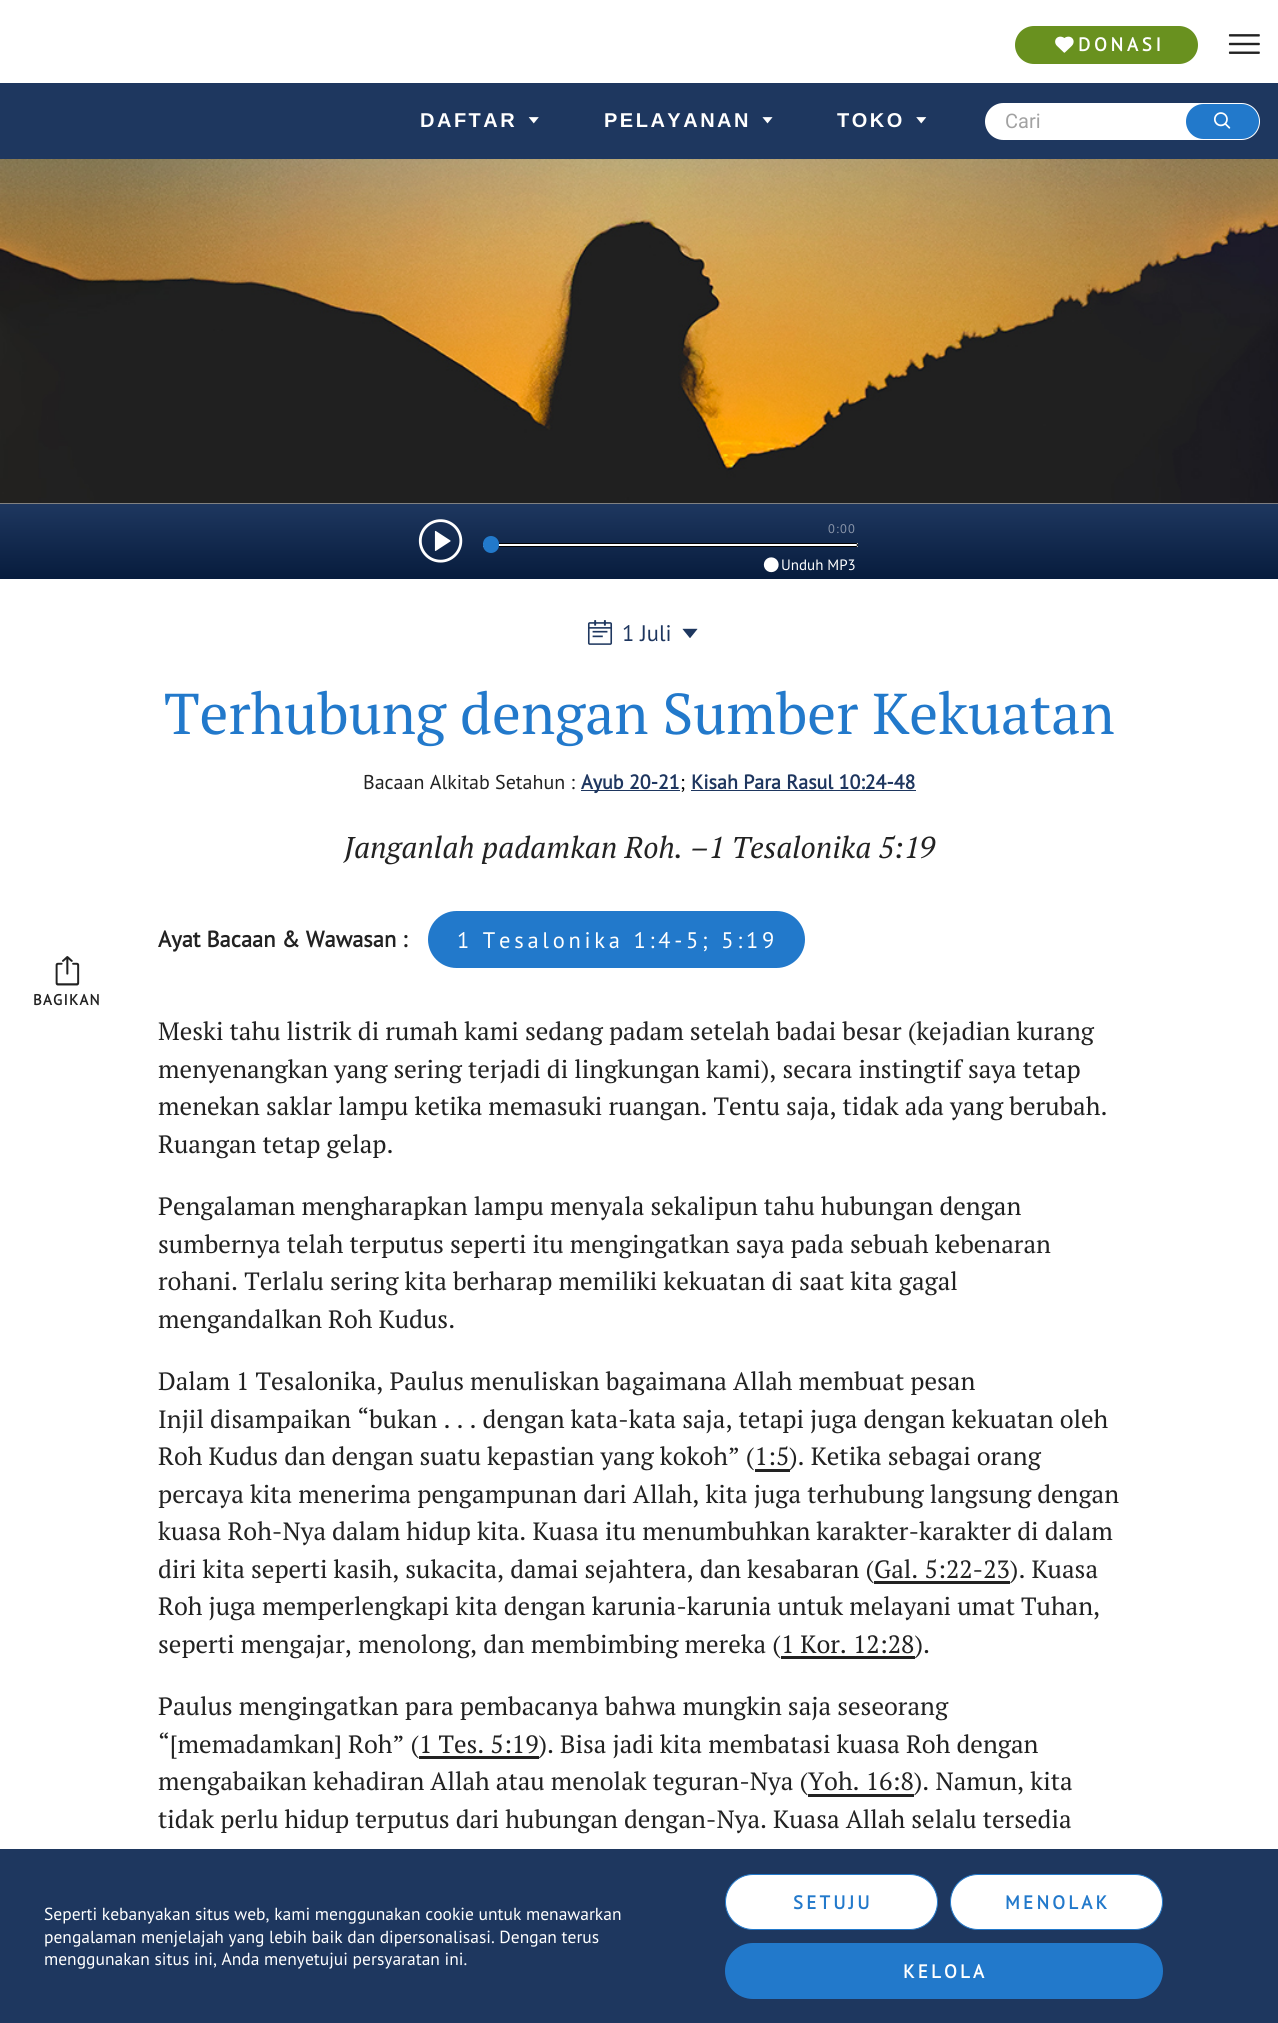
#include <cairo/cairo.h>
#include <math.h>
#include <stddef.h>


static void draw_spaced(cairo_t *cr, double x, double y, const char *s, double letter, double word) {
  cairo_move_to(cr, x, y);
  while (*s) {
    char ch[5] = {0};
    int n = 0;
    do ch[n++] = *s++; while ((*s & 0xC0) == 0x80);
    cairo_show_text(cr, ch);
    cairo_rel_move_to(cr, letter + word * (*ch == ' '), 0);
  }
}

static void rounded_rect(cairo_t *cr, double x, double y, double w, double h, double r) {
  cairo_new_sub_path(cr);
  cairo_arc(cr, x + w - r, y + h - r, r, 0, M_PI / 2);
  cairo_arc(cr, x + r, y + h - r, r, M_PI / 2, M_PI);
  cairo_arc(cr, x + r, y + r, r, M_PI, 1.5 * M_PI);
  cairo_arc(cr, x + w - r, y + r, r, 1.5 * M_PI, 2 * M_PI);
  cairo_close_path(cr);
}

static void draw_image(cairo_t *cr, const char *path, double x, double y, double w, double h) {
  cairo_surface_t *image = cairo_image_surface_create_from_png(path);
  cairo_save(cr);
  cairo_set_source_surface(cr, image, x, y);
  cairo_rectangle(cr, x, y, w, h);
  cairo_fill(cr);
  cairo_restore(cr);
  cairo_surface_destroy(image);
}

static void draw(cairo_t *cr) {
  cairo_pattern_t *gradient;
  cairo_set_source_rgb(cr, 1, 1, 1);
  cairo_paint(cr);
  cairo_set_source_rgb(cr, 105 / 255.0, 145 / 255.0, 31 / 255.0);
  rounded_rect(cr, 1015, 26, 183, 38, 19);
  cairo_fill(cr);
  draw_image(cr, "images/1.png", 1055, 36, 19, 17);
  draw_image(cr, "images/2.png", 1228, 34, 32, 20);
  cairo_set_source_rgb(cr, 30 / 255.0, 55 / 255.0, 95 / 255.0);
  cairo_rectangle(cr, 0, 83, 1278, 76);
  cairo_fill(cr);
  draw_image(cr, "images/3.png", 528, 117, 11, 7);
  draw_image(cr, "images/4.png", 762, 117, 11, 7);
  draw_image(cr, "images/5.png", 916, 117, 11, 7);
  cairo_set_source_rgb(cr, 1, 1, 1);
  rounded_rect(cr, 985, 103, 275, 37, 18.5);
  cairo_fill(cr);
  cairo_set_source_rgb(cr, 34 / 255.0, 121 / 255.0, 203 / 255.0);
  rounded_rect(cr, 1186, 104, 73, 35, 17.5);
  cairo_fill(cr);
  draw_image(cr, "images/6.png", 1214, 112, 17, 17);
  draw_image(cr, "images/7.png", 0, 159, 1278, 345);
  gradient = cairo_pattern_create_linear(639, 504, 639, 579);
  cairo_pattern_add_color_stop_rgba(gradient, 0, 30 / 255.0, 55 / 255.0, 95 / 255.0, 1);
  cairo_pattern_add_color_stop_rgba(gradient, 1, 7 / 255.0, 28 / 255.0, 61 / 255.0, 1);
  cairo_set_source(cr, gradient);
  cairo_pattern_destroy(gradient);
  cairo_rectangle(cr, 0, 504, 1278, 75);
  cairo_fill(cr);
  draw_image(cr, "images/8.png", 418, 519, 45, 44);
  cairo_set_source_rgb(cr, 1, 1, 1);
  cairo_rectangle(cr, 483, 543, 375, 4);
  cairo_fill(cr);
  rounded_rect(cr, 483.5, 543.5, 374, 3, 1.5);
  cairo_set_source_rgb(cr, 1 / 255.0, 1 / 255.0, 1 / 255.0);
  cairo_set_line_width(cr, 1);
  cairo_stroke(cr);
  cairo_set_source_rgb(cr, 34 / 255.0, 121 / 255.0, 203 / 255.0);
  rounded_rect(cr, 483, 536, 16, 17, 8);
  cairo_fill(cr);
  draw_image(cr, "images/9.png", 763, 557, 16, 16);
  draw_image(cr, "images/10.png", 587, 620, 26, 25);
  draw_image(cr, "images/11.png", 682, 628, 16, 10);
  cairo_set_source_rgb(cr, 30 / 255.0, 54 / 255.0, 95 / 255.0);
  cairo_rectangle(cr, 581, 790, 99, 1);
  cairo_fill(cr);
  cairo_rectangle(cr, 691, 790, 225, 1);
  cairo_fill(cr);
  cairo_set_source_rgb(cr, 34 / 255.0, 121 / 255.0, 203 / 255.0);
  rounded_rect(cr, 428, 911, 377, 57, 28.5);
  cairo_fill(cr);
  draw_image(cr, "images/12.png", 55, 956, 25, 30);
  cairo_set_source_rgb(cr, 34 / 255.0, 34 / 255.0, 34 / 255.0);
  cairo_rectangle(cr, 755, 1469, 35, 3);
  cairo_fill(cr);
  cairo_rectangle(cr, 874, 1581, 136, 3);
  cairo_fill(cr);
  cairo_rectangle(cr, 781, 1656, 134, 3);
  cairo_fill(cr);
  cairo_rectangle(cr, 419, 1756, 120, 3);
  cairo_fill(cr);
  cairo_rectangle(cr, 808, 1794, 106, 3);
  cairo_fill(cr);
  cairo_set_source_rgb(cr, 30 / 255.0, 55 / 255.0, 95 / 255.0);
  cairo_rectangle(cr, 0, 1849, 1278, 174);
  cairo_fill(cr);
  cairo_set_source_rgb(cr, 1, 1, 1);
  rounded_rect(cr, 725.5, 1874.5, 212, 55, 27.5);
  cairo_fill_preserve(cr);
  cairo_set_source_rgb(cr, 34 / 255.0, 121 / 255.0, 203 / 255.0);
  cairo_stroke(cr);
  cairo_set_source_rgb(cr, 1, 1, 1);
  rounded_rect(cr, 950.5, 1874.5, 212, 55, 27.5);
  cairo_fill_preserve(cr);
  cairo_set_source_rgb(cr, 34 / 255.0, 121 / 255.0, 203 / 255.0);
  cairo_stroke(cr);
  rounded_rect(cr, 725, 1943, 438, 56, 28);
  cairo_fill(cr);
  cairo_select_font_face(cr, "PT Sans", CAIRO_FONT_SLANT_NORMAL, CAIRO_FONT_WEIGHT_BOLD);
  cairo_set_font_size(cr, 18.75);
  cairo_set_source_rgb(cr, 1, 1, 1);
  draw_spaced(cr, 1078, 51, "DONASI", 3.75, 0);
  cairo_select_font_face(cr, "Liberation Sans", CAIRO_FONT_SLANT_NORMAL, CAIRO_FONT_WEIGHT_BOLD);
  cairo_set_font_size(cr, 20);
  draw_spaced(cr, 420, 127, "DAFTAR", 2.5, 0);
  draw_spaced(cr, 604, 127, "PELAYANAN", 2.5, 0);
  draw_spaced(cr, 837, 127, "TOKO", 2.5, 0);
  cairo_select_font_face(cr, "Roboto", CAIRO_FONT_SLANT_NORMAL, CAIRO_FONT_WEIGHT_NORMAL);
  cairo_set_source_rgb(cr, 162 / 255.0, 162 / 255.0, 162 / 255.0);
  cairo_move_to(cr, 1005, 128);
  cairo_show_text(cr, "Cari");
  cairo_select_font_face(cr, "PT Sans", CAIRO_FONT_SLANT_NORMAL, CAIRO_FONT_WEIGHT_NORMAL);
  cairo_set_font_size(cr, 12.5);
  cairo_set_source_rgb(cr, 136 / 255.0, 148 / 255.0, 168 / 255.0);
  draw_spaced(cr, 828, 533, "0:00", 1.25, 0);
  cairo_set_font_size(cr, 15);
  cairo_set_source_rgb(cr, 1, 1, 1);
  cairo_move_to(cr, 781, 570);
  cairo_show_text(cr, "Unduh MP3");
  cairo_set_font_size(cr, 22.5);
  cairo_set_source_rgb(cr, 30 / 255.0, 54 / 255.0, 95 / 255.0);
  cairo_move_to(cr, 622, 641);
  cairo_show_text(cr, "1 Juli");
  cairo_select_font_face(cr, "PT Serif", CAIRO_FONT_SLANT_NORMAL, CAIRO_FONT_WEIGHT_NORMAL);
  cairo_set_font_size(cr, 57.5);
  cairo_set_source_rgb(cr, 34 / 255.0, 121 / 255.0, 203 / 255.0);
  cairo_move_to(cr, 164, 734);
  cairo_show_text(cr, "Terhubung dengan Sumber Kekuatan");
  cairo_select_font_face(cr, "PT Sans", CAIRO_FONT_SLANT_NORMAL, CAIRO_FONT_WEIGHT_NORMAL);
  cairo_set_font_size(cr, 20);
  cairo_set_source_rgb(cr, 34 / 255.0, 34 / 255.0, 34 / 255.0);
  cairo_move_to(cr, 363, 789);
  cairo_show_text(cr, "Bacaan Alkitab Setahun :");
  cairo_select_font_face(cr, "PT Sans", CAIRO_FONT_SLANT_NORMAL, CAIRO_FONT_WEIGHT_BOLD);
  cairo_set_source_rgb(cr, 30 / 255.0, 54 / 255.0, 95 / 255.0);
  cairo_move_to(cr, 581, 789);
  cairo_show_text(cr, "Ayub 20-21");
  cairo_select_font_face(cr, "PT Sans", CAIRO_FONT_SLANT_NORMAL, CAIRO_FONT_WEIGHT_NORMAL);
  cairo_set_source_rgb(cr, 0, 0, 0);
  cairo_move_to(cr, 680, 789);
  cairo_show_text(cr, ";");
  cairo_select_font_face(cr, "PT Sans", CAIRO_FONT_SLANT_NORMAL, CAIRO_FONT_WEIGHT_BOLD);
  cairo_set_source_rgb(cr, 30 / 255.0, 54 / 255.0, 95 / 255.0);
  cairo_move_to(cr, 691, 789);
  cairo_show_text(cr, "Kisah Para Rasul 10:24-48");
  cairo_select_font_face(cr, "PT Serif", CAIRO_FONT_SLANT_ITALIC, CAIRO_FONT_WEIGHT_NORMAL);
  cairo_set_font_size(cr, 30);
  cairo_set_source_rgb(cr, 34 / 255.0, 34 / 255.0, 34 / 255.0);
  cairo_move_to(cr, 344, 858);
  cairo_show_text(cr, "Janganlah padamkan Roh. –1 Tesalonika 5:19");
  cairo_select_font_face(cr, "PT Sans", CAIRO_FONT_SLANT_NORMAL, CAIRO_FONT_WEIGHT_BOLD);
  cairo_set_font_size(cr, 22.5);
  cairo_move_to(cr, 158, 947);
  cairo_show_text(cr, "Ayat Bacaan & Wawasan :");
  cairo_select_font_face(cr, "PT Sans", CAIRO_FONT_SLANT_NORMAL, CAIRO_FONT_WEIGHT_NORMAL);
  cairo_set_source_rgb(cr, 1, 1, 1);
  draw_spaced(cr, 457, 948, "1 Tesalonika 1:4-5; 5:19", 3.75, 0);
  cairo_select_font_face(cr, "PT Sans", CAIRO_FONT_SLANT_NORMAL, CAIRO_FONT_WEIGHT_BOLD);
  cairo_set_font_size(cr, 15);
  cairo_set_source_rgb(cr, 34 / 255.0, 34 / 255.0, 34 / 255.0);
  draw_spaced(cr, 33, 1005, "BAGIKAN", 1.25, 0);
  cairo_select_font_face(cr, "PT Serif", CAIRO_FONT_SLANT_NORMAL, CAIRO_FONT_WEIGHT_NORMAL);
  cairo_set_font_size(cr, 25);
  cairo_move_to(cr, 158, 1040);
  cairo_show_text(cr, "Meski tahu listrik di rumah kami sedang padam setelah badai besar (kejadian kurang");
  cairo_move_to(cr, 158, 1078);
  cairo_show_text(cr, "menyenangkan yang sering terjadi di lingkungan kami), secara instingtif saya tetap");
  cairo_move_to(cr, 158, 1115);
  cairo_show_text(cr, "menekan saklar lampu ketika memasuki ruangan. Tentu saja, tidak ada yang berubah.");
  cairo_move_to(cr, 158, 1153);
  cairo_show_text(cr, "Ruangan tetap gelap.");
  cairo_move_to(cr, 158, 1215);
  cairo_show_text(cr, "Pengalaman mengharapkan lampu menyala sekalipun tahu hubungan dengan");
  cairo_move_to(cr, 158, 1253);
  cairo_show_text(cr, "sumbernya telah terputus seperti itu mengingatkan saya pada sebuah kebenaran");
  cairo_move_to(cr, 158, 1290);
  cairo_show_text(cr, "rohani. Terlalu sering kita berharap memiliki kekuatan di saat kita gagal");
  cairo_move_to(cr, 158, 1328);
  cairo_show_text(cr, "mengandalkan Roh Kudus.");
  cairo_move_to(cr, 158, 1390);
  cairo_show_text(cr, "Dalam 1 Tesalonika, Paulus menuliskan bagaimana Allah membuat pesan");
  cairo_move_to(cr, 158, 1428);
  cairo_show_text(cr, "Injil disampaikan “bukan . . . dengan kata-kata saja, tetapi juga dengan kekuatan oleh");
  cairo_move_to(cr, 158, 1465);
  cairo_show_text(cr, "Roh Kudus dan dengan suatu kepastian yang kokoh” (1:5");
  cairo_move_to(cr, 789, 1465);
  cairo_show_text(cr, "). Ketika sebagai orang");
  cairo_move_to(cr, 158, 1503);
  cairo_show_text(cr, "percaya kita menerima pengampunan dari Allah, kita juga terhubung langsung dengan");
  cairo_move_to(cr, 158, 1540);
  cairo_show_text(cr, "kuasa Roh-Nya dalam hidup kita. Kuasa itu menumbuhkan karakter-karakter di dalam");
  cairo_move_to(cr, 158, 1578);
  cairo_show_text(cr, "diri kita seperti kasih, sukacita, damai sejahtera, dan kesabaran (Gal. 5:22-23). Kuasa");
  cairo_move_to(cr, 158, 1615);
  cairo_show_text(cr, "Roh juga memperlengkapi kita dengan karunia-karunia untuk melayani umat Tuhan,");
  cairo_move_to(cr, 158, 1653);
  cairo_show_text(cr, "seperti mengajar, menolong, dan membimbing mereka (1 Kor. 12:28).");
  cairo_move_to(cr, 158, 1715);
  cairo_show_text(cr, "Paulus mengingatkan para pembacanya bahwa mungkin saja seseorang");
  cairo_move_to(cr, 158, 1753);
  cairo_show_text(cr, "“[memadamkan] Roh” (1 Tes. 5:19). Bisa jadi kita membatasi kuasa Roh dengan");
  cairo_move_to(cr, 158, 1790);
  cairo_show_text(cr, "mengabaikan kehadiran Allah atau menolak teguran-Nya (Yoh. 16:8). Namun, kita");
  cairo_move_to(cr, 158, 1828);
  cairo_show_text(cr, "tidak perlu hidup terputus dari hubungan dengan-Nya. Kuasa Allah selalu tersedia");
  cairo_select_font_face(cr, "PT Sans", CAIRO_FONT_SLANT_NORMAL, CAIRO_FONT_WEIGHT_NORMAL);
  cairo_set_font_size(cr, 17.5);
  cairo_set_source_rgb(cr, 1, 1, 1);
  cairo_move_to(cr, 44, 1920);
  cairo_show_text(cr, "Seperti kebanyakan situs web, kami menggunakan cookie untuk menawarkan");
  cairo_move_to(cr, 44, 1943);
  cairo_show_text(cr, "pengalaman menjelajah yang lebih baik dan dipersonalisasi. Dengan terus");
  cairo_move_to(cr, 44, 1965);
  cairo_show_text(cr, "menggunakan situs ini, Anda menyetujui persyaratan ini.");
  cairo_select_font_face(cr, "PT Sans", CAIRO_FONT_SLANT_NORMAL, CAIRO_FONT_WEIGHT_BOLD);
  cairo_set_font_size(cr, 18.75);
  cairo_set_source_rgb(cr, 34 / 255.0, 121 / 255.0, 203 / 255.0);
  draw_spaced(cr, 793, 1909, "SETUJU", 3.25, 0);
  draw_spaced(cr, 1005, 1909, "MENOLAK", 3.25, 0);
  cairo_set_source_rgb(cr, 1, 1, 1);
  draw_spaced(cr, 903, 1978, "KELOLA", 3.25, 0);
}

int main(void) {
  cairo_surface_t *surface = cairo_image_surface_create(CAIRO_FORMAT_RGB24, 1278, 2023);
  cairo_t *cr = cairo_create(surface);
  cairo_font_options_t *options = cairo_font_options_create();
  cairo_font_options_set_hint_metrics(options, CAIRO_HINT_METRICS_OFF);
  cairo_font_options_set_hint_style(options, CAIRO_HINT_STYLE_NONE);
  cairo_set_font_options(cr, options);
  cairo_set_miter_limit(cr, 4);
  draw(cr);
  cairo_surface_write_to_png(surface, "out.png");
  cairo_font_options_destroy(options);
  cairo_destroy(cr);
  cairo_surface_destroy(surface);
  return 0;
}
